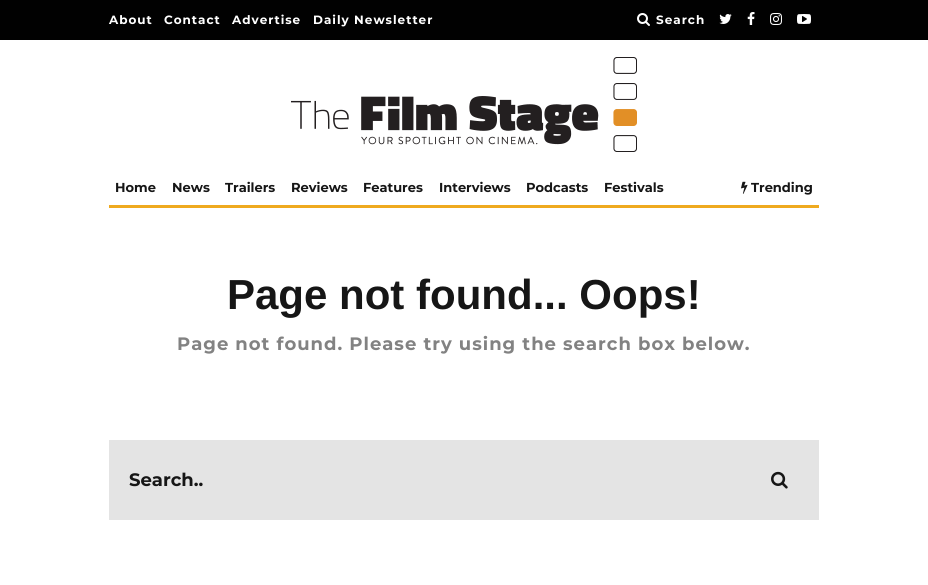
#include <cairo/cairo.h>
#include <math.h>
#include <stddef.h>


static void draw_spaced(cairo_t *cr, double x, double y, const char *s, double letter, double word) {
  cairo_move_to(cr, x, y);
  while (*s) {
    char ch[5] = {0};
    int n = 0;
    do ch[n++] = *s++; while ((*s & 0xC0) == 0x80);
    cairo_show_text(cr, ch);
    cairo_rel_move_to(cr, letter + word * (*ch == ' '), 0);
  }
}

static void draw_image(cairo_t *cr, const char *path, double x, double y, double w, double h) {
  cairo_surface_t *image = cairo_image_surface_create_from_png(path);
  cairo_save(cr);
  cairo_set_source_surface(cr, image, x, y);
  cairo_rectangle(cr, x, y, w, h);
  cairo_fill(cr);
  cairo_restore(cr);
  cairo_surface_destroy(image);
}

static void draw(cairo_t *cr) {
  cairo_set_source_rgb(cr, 1, 1, 1);
  cairo_paint(cr);
  cairo_set_source_rgb(cr, 1 / 255.0, 1 / 255.0, 1 / 255.0);
  cairo_rectangle(cr, 0, 0, 928, 40);
  cairo_fill(cr);
  draw_image(cr, "images/1.png", 637, 13, 13, 13);
  draw_image(cr, "images/2.png", 719, 14, 13, 10);
  draw_image(cr, "images/3.png", 747, 12, 8, 13);
  draw_image(cr, "images/4.png", 770, 13, 12, 12);
  draw_image(cr, "images/5.png", 797, 14, 14, 10);
  draw_image(cr, "images/6.png", 291, 57, 346, 95);
  cairo_set_source_rgb(cr, 239 / 255.0, 170 / 255.0, 31 / 255.0);
  cairo_rectangle(cr, 109, 205, 710, 3);
  cairo_fill(cr);
  draw_image(cr, "images/7.png", 741, 181, 7, 13);
  cairo_set_source_rgb(cr, 228 / 255.0, 228 / 255.0, 228 / 255.0);
  cairo_rectangle(cr, 109, 440, 710, 80);
  cairo_fill(cr);
  draw_image(cr, "images/8.png", 771, 471, 17, 18);
  cairo_select_font_face(cr, "Montserrat", CAIRO_FONT_SLANT_NORMAL, CAIRO_FONT_WEIGHT_BOLD);
  cairo_set_font_size(cr, 12);
  cairo_set_source_rgb(cr, 1, 1, 1);
  draw_spaced(cr, 109, 24, "About", 1, 0);
  draw_spaced(cr, 164, 24, "Contact", 1, 0);
  draw_spaced(cr, 232, 24, "Advertise", 1, 0);
  draw_spaced(cr, 313, 24, "Daily Newsletter", 1, 0);
  draw_spaced(cr, 656, 24, "Search", 1, 0);
  cairo_set_font_size(cr, 13);
  cairo_set_source_rgb(cr, 22 / 255.0, 22 / 255.0, 22 / 255.0);
  cairo_move_to(cr, 115, 192);
  cairo_show_text(cr, "Home");
  cairo_move_to(cr, 172, 192);
  cairo_show_text(cr, "News");
  cairo_move_to(cr, 225, 192);
  cairo_show_text(cr, "Trailers");
  cairo_move_to(cr, 291, 192);
  cairo_show_text(cr, "Reviews");
  cairo_move_to(cr, 363, 192);
  cairo_show_text(cr, "Features");
  cairo_move_to(cr, 439, 192);
  cairo_show_text(cr, "Interviews");
  cairo_move_to(cr, 526, 192);
  cairo_show_text(cr, "Podcasts");
  cairo_move_to(cr, 604, 192);
  cairo_show_text(cr, "Festivals");
  cairo_move_to(cr, 751, 192);
  cairo_show_text(cr, "Trending");
  cairo_select_font_face(cr, "Liberation Sans", CAIRO_FONT_SLANT_NORMAL, CAIRO_FONT_WEIGHT_BOLD);
  cairo_set_font_size(cr, 42);
  cairo_move_to(cr, 227, 309);
  cairo_show_text(cr, "Page not found... Oops!");
  cairo_select_font_face(cr, "Montserrat", CAIRO_FONT_SLANT_NORMAL, CAIRO_FONT_WEIGHT_BOLD);
  cairo_set_font_size(cr, 18);
  cairo_set_source_rgb(cr, 130 / 255.0, 130 / 255.0, 130 / 255.0);
  draw_spaced(cr, 177, 350, "Page not found. Please try using the search box below.", 1, 0);
  cairo_set_source_rgb(cr, 22 / 255.0, 22 / 255.0, 22 / 255.0);
  cairo_move_to(cr, 129, 486);
  cairo_show_text(cr, "Search..");
}

int main(void) {
  cairo_surface_t *surface = cairo_image_surface_create(CAIRO_FORMAT_RGB24, 928, 585);
  cairo_t *cr = cairo_create(surface);
  cairo_font_options_t *options = cairo_font_options_create();
  cairo_font_options_set_hint_metrics(options, CAIRO_HINT_METRICS_OFF);
  cairo_font_options_set_hint_style(options, CAIRO_HINT_STYLE_NONE);
  cairo_set_font_options(cr, options);
  cairo_set_miter_limit(cr, 4);
  draw(cr);
  cairo_surface_write_to_png(surface, "out.png");
  cairo_font_options_destroy(options);
  cairo_destroy(cr);
  cairo_surface_destroy(surface);
  return 0;
}
